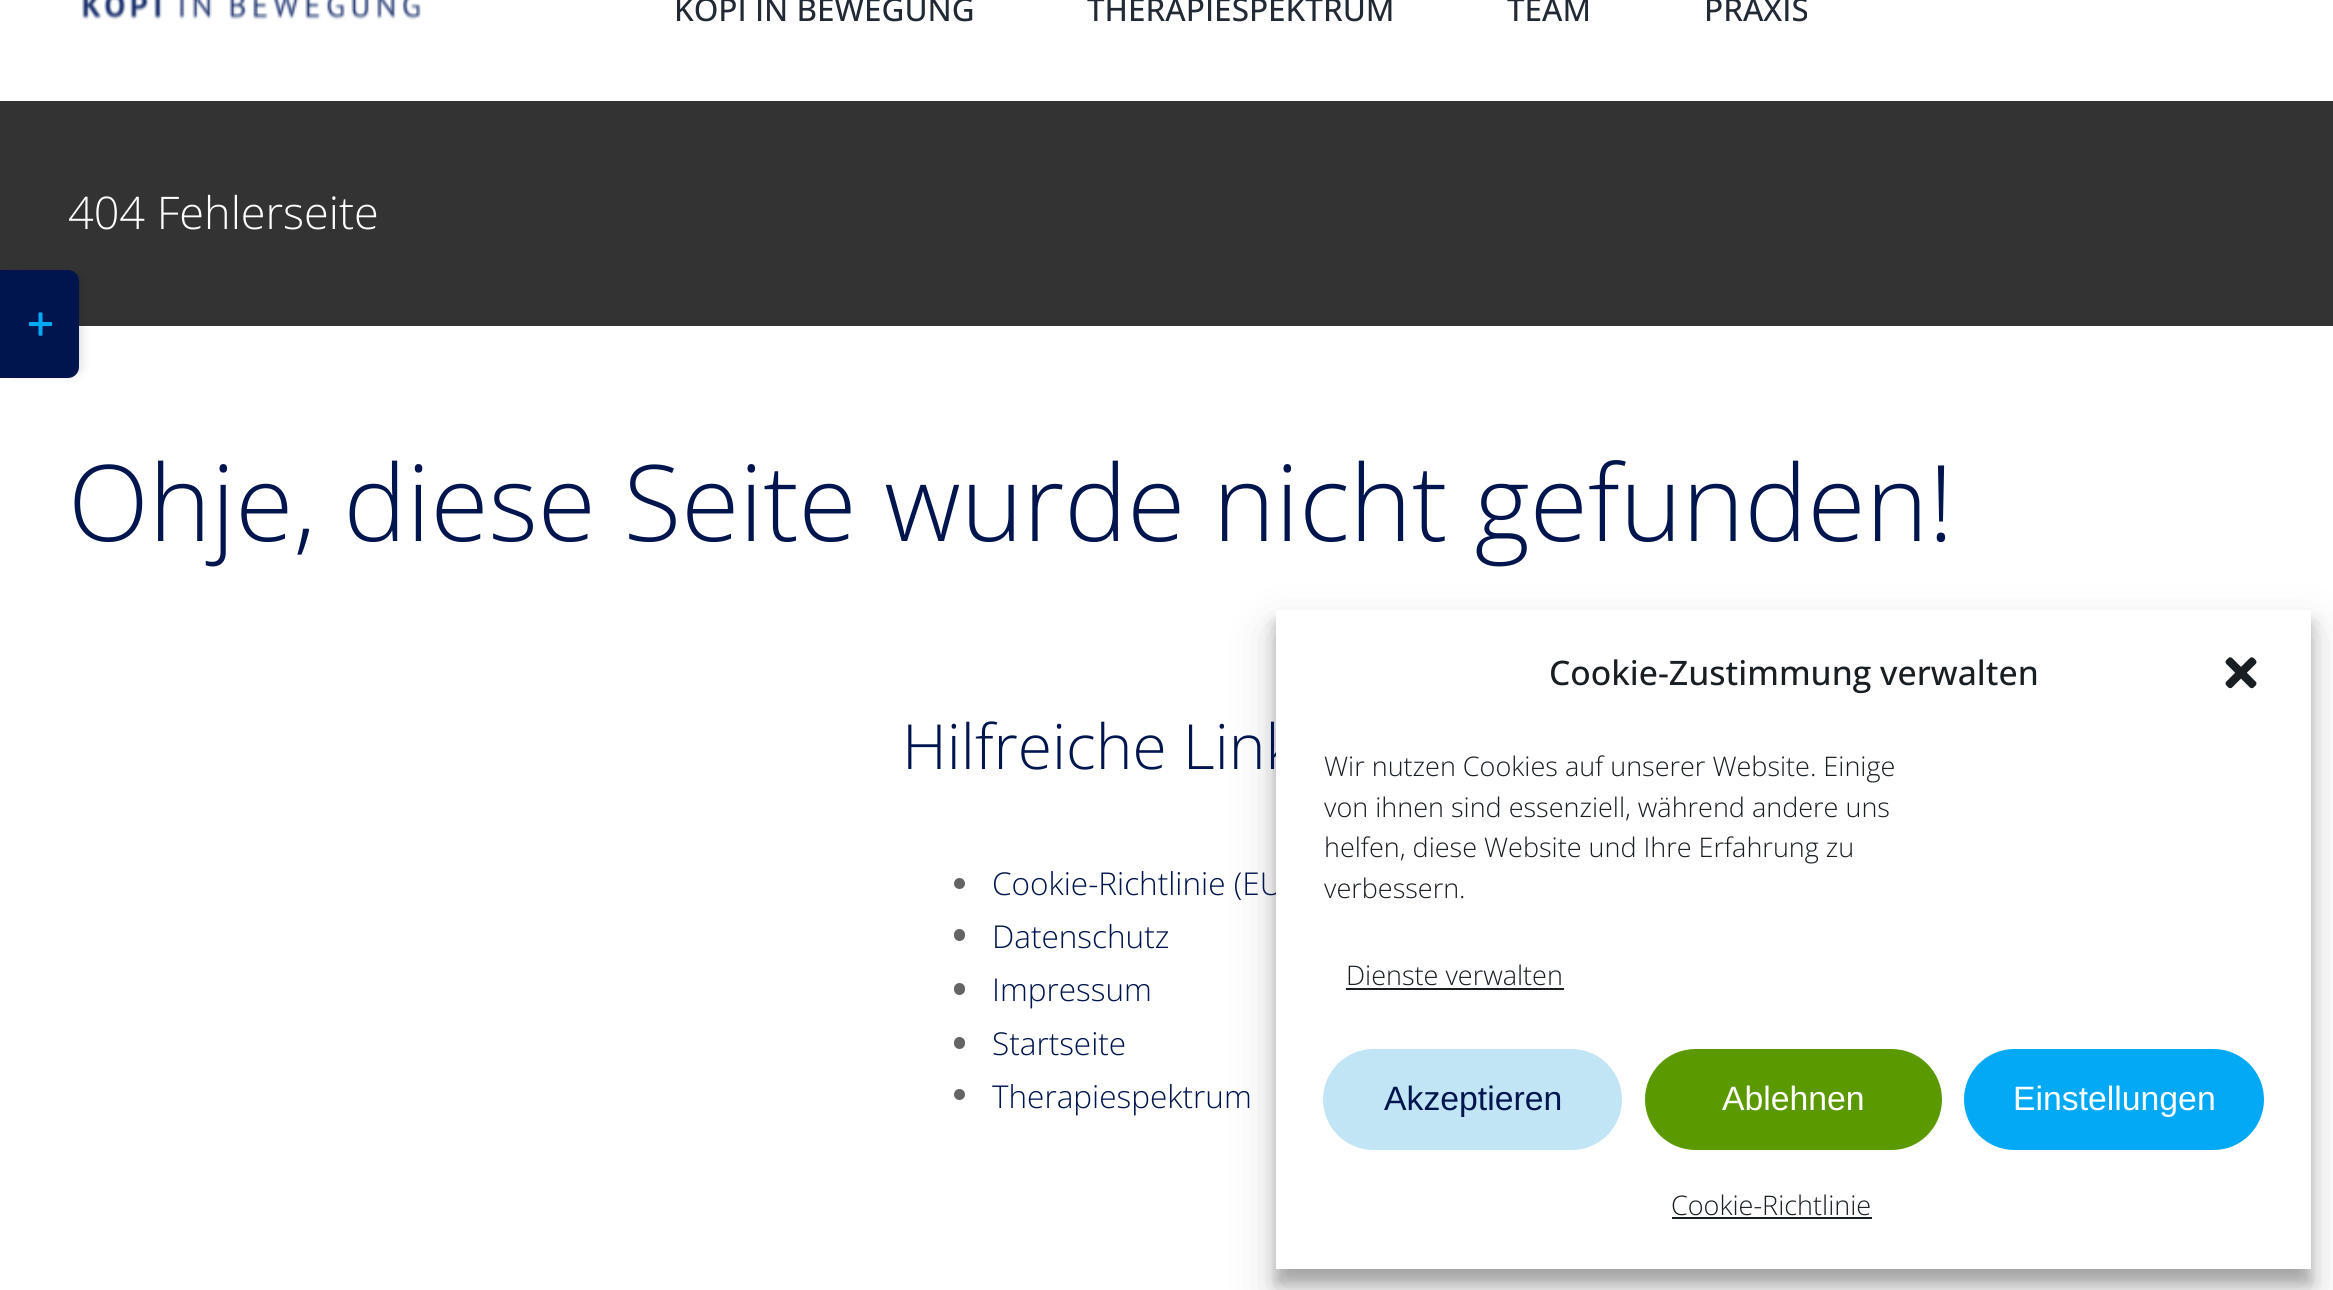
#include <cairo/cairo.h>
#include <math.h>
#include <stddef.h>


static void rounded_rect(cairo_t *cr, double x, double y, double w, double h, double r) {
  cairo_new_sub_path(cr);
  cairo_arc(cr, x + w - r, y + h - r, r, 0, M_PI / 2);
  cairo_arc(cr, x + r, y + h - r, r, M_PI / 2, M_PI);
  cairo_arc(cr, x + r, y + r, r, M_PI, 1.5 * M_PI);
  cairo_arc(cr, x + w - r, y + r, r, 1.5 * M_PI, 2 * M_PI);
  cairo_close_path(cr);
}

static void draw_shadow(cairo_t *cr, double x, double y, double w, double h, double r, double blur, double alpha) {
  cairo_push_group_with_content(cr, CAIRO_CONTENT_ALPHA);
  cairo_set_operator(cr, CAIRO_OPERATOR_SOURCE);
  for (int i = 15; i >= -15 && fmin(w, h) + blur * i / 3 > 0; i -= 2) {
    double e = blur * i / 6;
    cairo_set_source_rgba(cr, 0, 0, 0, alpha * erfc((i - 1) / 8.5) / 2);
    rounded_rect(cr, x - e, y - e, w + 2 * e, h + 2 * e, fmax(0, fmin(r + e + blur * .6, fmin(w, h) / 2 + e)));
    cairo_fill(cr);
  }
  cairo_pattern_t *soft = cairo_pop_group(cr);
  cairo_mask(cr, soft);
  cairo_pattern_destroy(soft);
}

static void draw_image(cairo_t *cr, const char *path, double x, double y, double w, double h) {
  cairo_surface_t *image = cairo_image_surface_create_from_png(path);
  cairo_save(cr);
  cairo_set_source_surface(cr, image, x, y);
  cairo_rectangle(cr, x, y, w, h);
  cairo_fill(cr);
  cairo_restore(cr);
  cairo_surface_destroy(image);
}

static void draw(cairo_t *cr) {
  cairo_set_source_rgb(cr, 1, 1, 1);
  cairo_paint(cr);
  draw_image(cr, "images/1.png", 82, 0, 339, 20);
  cairo_set_source_rgb(cr, 51 / 255.0, 51 / 255.0, 51 / 255.0);
  cairo_rectangle(cr, 0, 101, 2333, 225);
  cairo_fill(cr);
  cairo_set_source_rgb(cr, 0, 0, 0);
  draw_shadow(cr, 11, 275, 70, 99, 7, 5.5, 0.14);
  cairo_set_source_rgb(cr, 0, 21 / 255.0, 78 / 255.0);
  cairo_new_path(cr);
  cairo_move_to(cr, 0, 270);
  cairo_line_to(cr, 68, 270);
  cairo_curve_to(cr, 74, 270, 79, 275, 79, 281);
  cairo_line_to(cr, 79, 367);
  cairo_curve_to(cr, 79, 373, 74, 378, 68, 378);
  cairo_line_to(cr, 0, 378);
  cairo_close_path(cr);
  cairo_fill(cr);
  draw_image(cr, "images/2.png", 28, 312, 25, 24);
  cairo_set_source_rgb(cr, 100 / 255.0, 100 / 255.0, 100 / 255.0);
  cairo_arc(cr, 959.5, 883.5, 5.5, 0, 2 * M_PI);
  cairo_fill(cr);
  rounded_rect(cr, 954, 929, 11, 12, 5.5);
  cairo_fill(cr);
  rounded_rect(cr, 954, 983, 11, 12, 5.5);
  cairo_fill(cr);
  rounded_rect(cr, 954, 1037, 11, 12, 5.5);
  cairo_fill(cr);
  cairo_arc(cr, 959.5, 1094.5, 5.5, 0, 2 * M_PI);
  cairo_fill(cr);
  cairo_set_source_rgb(cr, 0, 0, 0);
  draw_shadow(cr, 1276, 623, 1035, 660, 0, 7, 0.23);
  draw_shadow(cr, 1276, 632, 1035, 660, 0, 22.5, 0.19);
  cairo_select_font_face(cr, "Open Sans Medium", CAIRO_FONT_SLANT_NORMAL, CAIRO_FONT_WEIGHT_NORMAL);
  cairo_set_font_size(cr, 31.5);
  cairo_set_source_rgb(cr, 33 / 255.0, 41 / 255.0, 52 / 255.0);
  cairo_move_to(cr, 674, 21);
  cairo_show_text(cr, "KÖPI IN BEWEGUNG");
  cairo_move_to(cr, 1087, 21);
  cairo_show_text(cr, "THERAPIESPEKTRUM");
  cairo_move_to(cr, 1507, 21);
  cairo_show_text(cr, "TEAM");
  cairo_move_to(cr, 1704, 21);
  cairo_show_text(cr, "PRAXIS");
  cairo_select_font_face(cr, "Open Sans Light", CAIRO_FONT_SLANT_NORMAL, CAIRO_FONT_WEIGHT_NORMAL);
  cairo_set_font_size(cr, 45);
  cairo_set_source_rgb(cr, 1, 1, 1);
  cairo_move_to(cr, 68, 229);
  cairo_show_text(cr, "404 Fehlerseite");
  cairo_set_font_size(cr, 105.8);
  cairo_set_source_rgb(cr, 0, 21 / 255.0, 78 / 255.0);
  cairo_move_to(cr, 68, 541);
  cairo_show_text(cr, "Ohje, diese Seite wurde nicht gefunden!");
  cairo_set_font_size(cr, 62.25);
  cairo_move_to(cr, 902, 769);
  cairo_show_text(cr, "Hilfreiche Link");
  cairo_set_font_size(cr, 31.5);
  cairo_move_to(cr, 992, 895);
  cairo_show_text(cr, "Cookie-Richtlinie (EU");
  cairo_move_to(cr, 992, 948);
  cairo_show_text(cr, "Datenschutz");
  cairo_move_to(cr, 992, 1001);
  cairo_show_text(cr, "Impressum");
  cairo_move_to(cr, 992, 1055);
  cairo_show_text(cr, "Startseite");
  cairo_move_to(cr, 992, 1108);
  cairo_show_text(cr, "Therapiespektrum");
  cairo_set_source_rgb(cr, 1, 1, 1);
  cairo_rectangle(cr, 1276, 610, 1035, 659);
  cairo_fill(cr);
  cairo_select_font_face(cr, "Open Sans Medium", CAIRO_FONT_SLANT_NORMAL, CAIRO_FONT_WEIGHT_NORMAL);
  cairo_set_font_size(cr, 33.75);
  cairo_set_source_rgb(cr, 25 / 255.0, 30 / 255.0, 35 / 255.0);
  cairo_move_to(cr, 1549, 685);
  cairo_show_text(cr, "Cookie-Zustimmung verwalten");
  draw_image(cr, "images/3.png", 2225, 657, 32, 32);
  cairo_select_font_face(cr, "Open Sans Light", CAIRO_FONT_SLANT_NORMAL, CAIRO_FONT_WEIGHT_NORMAL);
  cairo_set_font_size(cr, 27);
  cairo_move_to(cr, 1324, 776);
  cairo_show_text(cr, "Wir nutzen Cookies auf unserer Website. Einige");
  cairo_move_to(cr, 1324, 817);
  cairo_show_text(cr, "von ihnen sind essenziell, während andere uns");
  cairo_move_to(cr, 1324, 857);
  cairo_show_text(cr, "helfen, diese Website und Ihre Erfahrung zu");
  cairo_move_to(cr, 1324, 898);
  cairo_show_text(cr, "verbessern.");
  cairo_move_to(cr, 1346, 985);
  cairo_show_text(cr, "Dienste verwalten");
  cairo_rectangle(cr, 1346, 988, 218, 2);
  cairo_fill(cr);
  cairo_set_source_rgb(cr, 193 / 255.0, 229 / 255.0, 244 / 255.0);
  rounded_rect(cr, 1324, 1050, 297, 99, 49.5);
  cairo_fill_preserve(cr);
  cairo_stroke(cr);
  cairo_select_font_face(cr, "Liberation Sans", CAIRO_FONT_SLANT_NORMAL, CAIRO_FONT_WEIGHT_NORMAL);
  cairo_set_font_size(cr, 33.75);
  cairo_set_source_rgb(cr, 0, 21 / 255.0, 78 / 255.0);
  cairo_move_to(cr, 1384, 1110);
  cairo_show_text(cr, "Akzeptieren");
  cairo_set_source_rgb(cr, 91 / 255.0, 153 / 255.0, 0);
  rounded_rect(cr, 1646, 1050, 295, 99, 49.5);
  cairo_fill_preserve(cr);
  cairo_stroke(cr);
  cairo_set_source_rgb(cr, 1, 1, 1);
  cairo_move_to(cr, 1722, 1110);
  cairo_show_text(cr, "Ablehnen");
  cairo_set_source_rgb(cr, 3 / 255.0, 169 / 255.0, 244 / 255.0);
  rounded_rect(cr, 1965, 1050, 298, 99, 49.5);
  cairo_fill_preserve(cr);
  cairo_stroke(cr);
  cairo_set_source_rgb(cr, 1, 1, 1);
  cairo_move_to(cr, 2013, 1110);
  cairo_show_text(cr, "Einstellungen");
  cairo_select_font_face(cr, "Open Sans Light", CAIRO_FONT_SLANT_NORMAL, CAIRO_FONT_WEIGHT_NORMAL);
  cairo_set_font_size(cr, 27);
  cairo_set_source_rgb(cr, 25 / 255.0, 30 / 255.0, 35 / 255.0);
  cairo_move_to(cr, 1671, 1215);
  cairo_show_text(cr, "Cookie-Richtlinie");
  cairo_rectangle(cr, 1672, 1217, 200, 2);
  cairo_fill(cr);
}

int main(void) {
  cairo_surface_t *surface = cairo_image_surface_create(CAIRO_FORMAT_RGB24, 2333, 1290);
  cairo_t *cr = cairo_create(surface);
  cairo_font_options_t *options = cairo_font_options_create();
  cairo_font_options_set_hint_metrics(options, CAIRO_HINT_METRICS_OFF);
  cairo_font_options_set_hint_style(options, CAIRO_HINT_STYLE_NONE);
  cairo_set_font_options(cr, options);
  cairo_set_miter_limit(cr, 4);
  draw(cr);
  cairo_surface_write_to_png(surface, "out.png");
  cairo_font_options_destroy(options);
  cairo_destroy(cr);
  cairo_surface_destroy(surface);
  return 0;
}
